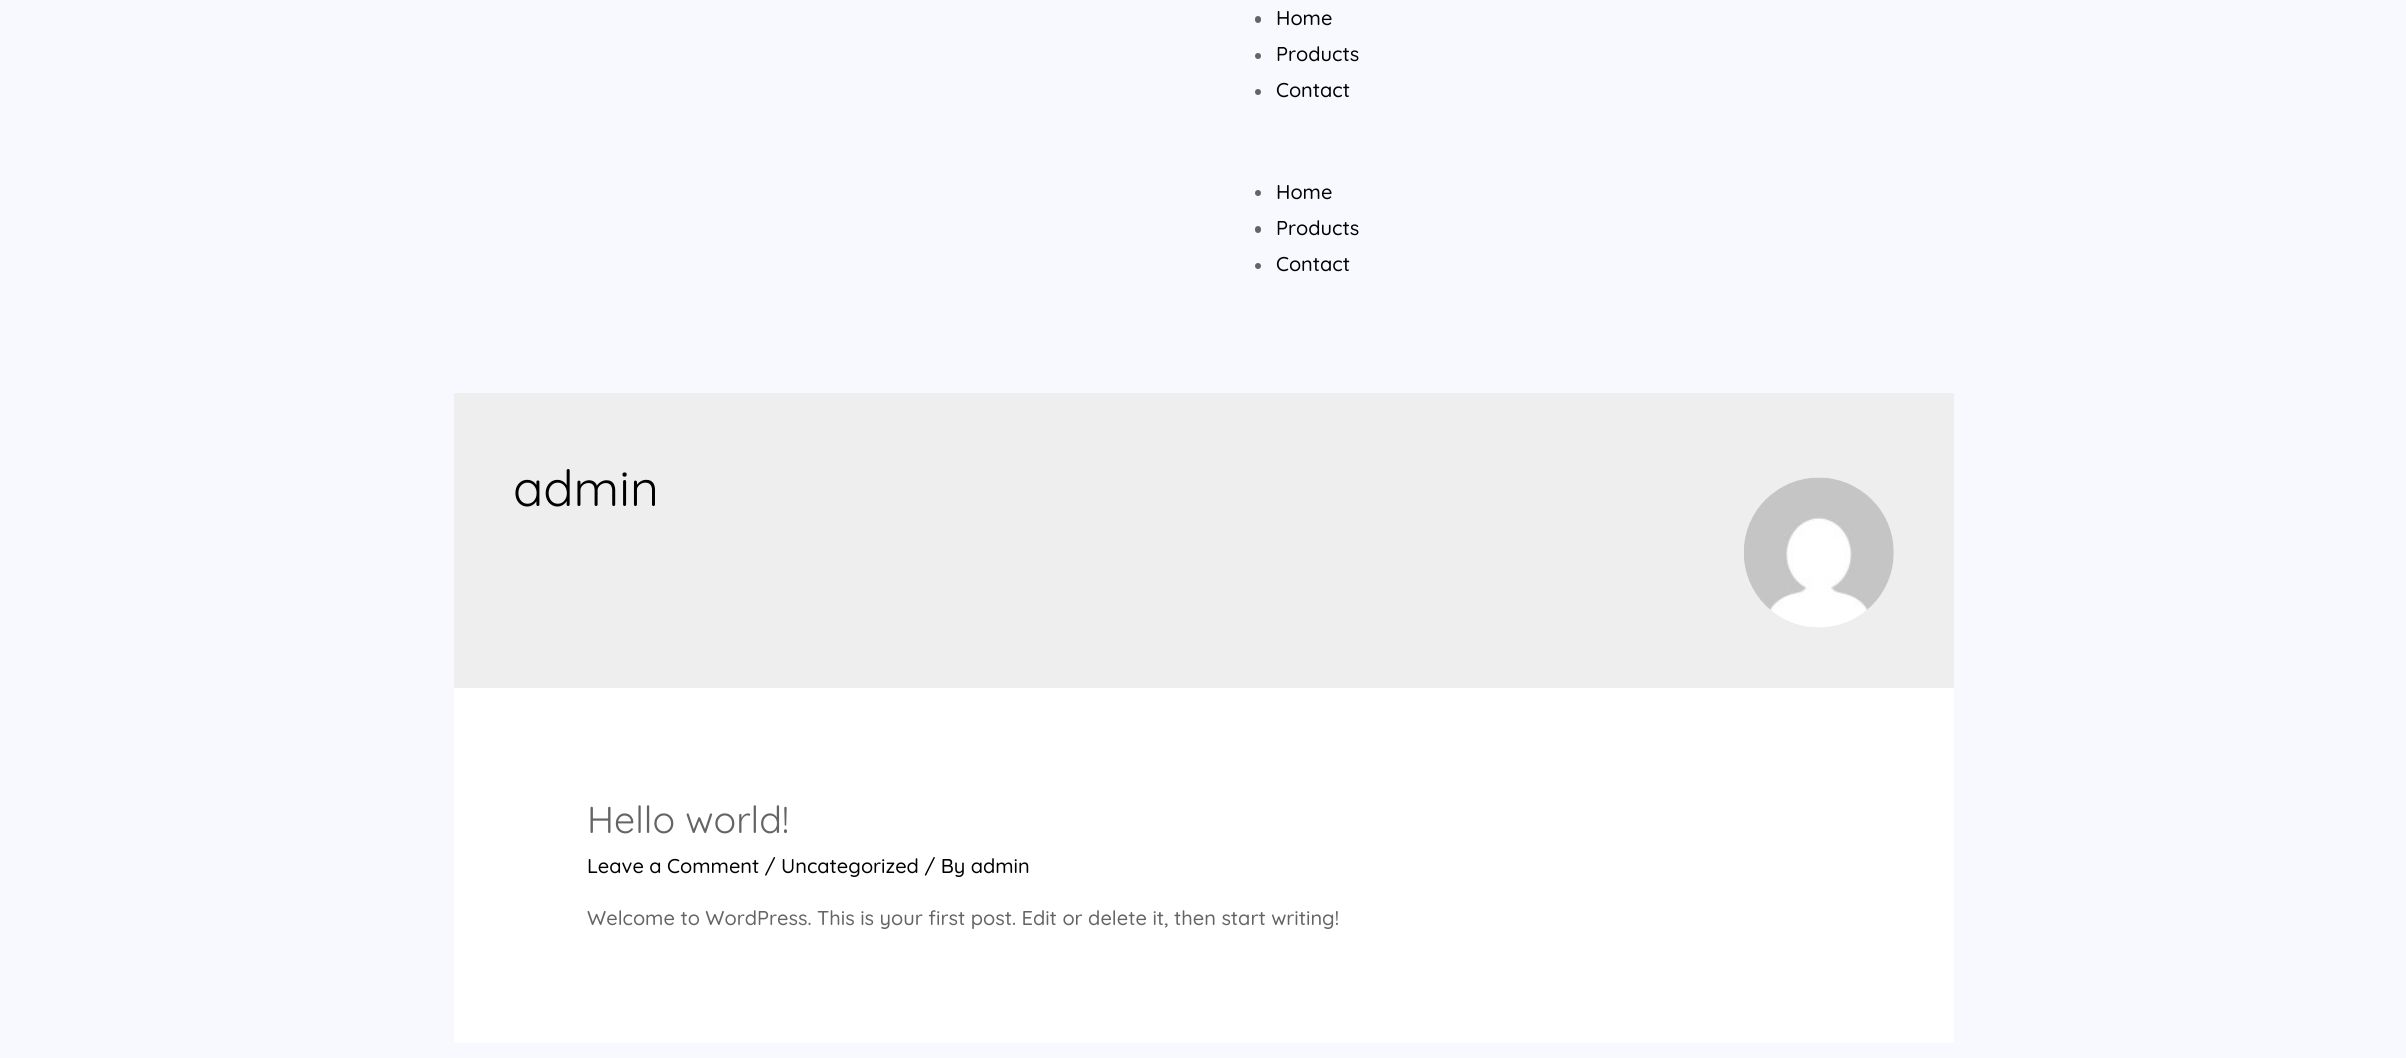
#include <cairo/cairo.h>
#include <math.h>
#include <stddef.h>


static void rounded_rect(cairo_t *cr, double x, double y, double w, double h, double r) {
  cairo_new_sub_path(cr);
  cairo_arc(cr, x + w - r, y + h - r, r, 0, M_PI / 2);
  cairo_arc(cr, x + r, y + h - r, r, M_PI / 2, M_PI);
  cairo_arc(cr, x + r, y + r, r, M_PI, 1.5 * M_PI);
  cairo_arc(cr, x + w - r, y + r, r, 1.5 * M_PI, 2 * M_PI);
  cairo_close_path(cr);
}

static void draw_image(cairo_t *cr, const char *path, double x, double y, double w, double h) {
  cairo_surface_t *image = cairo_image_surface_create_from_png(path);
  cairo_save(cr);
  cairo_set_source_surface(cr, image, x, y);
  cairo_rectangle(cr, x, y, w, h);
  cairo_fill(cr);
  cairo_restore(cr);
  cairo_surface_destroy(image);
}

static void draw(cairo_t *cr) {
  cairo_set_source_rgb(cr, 248 / 255.0, 248 / 255.0, 1);
  cairo_paint(cr);
  cairo_set_source_rgb(cr, 100 / 255.0, 100 / 255.0, 103 / 255.0);
  rounded_rect(cr, 1255, 16, 6, 7, 3);
  cairo_fill(cr);
  cairo_arc(cr, 1258, 56, 3, 0, 2 * M_PI);
  cairo_fill(cr);
  cairo_arc(cr, 1258, 92, 3, 0, 2 * M_PI);
  cairo_fill(cr);
  cairo_arc(cr, 1258, 193, 3, 0, 2 * M_PI);
  cairo_fill(cr);
  rounded_rect(cr, 1255, 226, 6, 7, 3);
  cairo_fill(cr);
  cairo_arc(cr, 1258, 266, 3, 0, 2 * M_PI);
  cairo_fill(cr);
  cairo_set_source_rgb(cr, 238 / 255.0, 238 / 255.0, 238 / 255.0);
  cairo_rectangle(cr, 454, 393, 1500, 295);
  cairo_fill(cr);
  draw_image(cr, "images/1.png", 1744, 477, 150, 151);
  cairo_set_source_rgb(cr, 1, 1, 1);
  cairo_rectangle(cr, 454, 688, 1500, 355);
  cairo_fill(cr);
  cairo_select_font_face(cr, "Quicksand Medium", CAIRO_FONT_SLANT_NORMAL, CAIRO_FONT_WEIGHT_NORMAL);
  cairo_set_font_size(cr, 20);
  cairo_set_source_rgb(cr, 0, 0, 0);
  cairo_move_to(cr, 1276, 25);
  cairo_show_text(cr, "Home");
  cairo_move_to(cr, 1276, 61);
  cairo_show_text(cr, "Products");
  cairo_move_to(cr, 1276, 97);
  cairo_show_text(cr, "Contact");
  cairo_move_to(cr, 1276, 199);
  cairo_show_text(cr, "Home");
  cairo_move_to(cr, 1276, 235);
  cairo_show_text(cr, "Products");
  cairo_move_to(cr, 1276, 271);
  cairo_show_text(cr, "Contact");
  cairo_select_font_face(cr, "Quicksand", CAIRO_FONT_SLANT_NORMAL, CAIRO_FONT_WEIGHT_NORMAL);
  cairo_set_font_size(cr, 50);
  cairo_move_to(cr, 513, 506);
  cairo_show_text(cr, "admin");
  cairo_set_font_size(cr, 37.5);
  cairo_set_source_rgb(cr, 100 / 255.0, 100 / 255.0, 103 / 255.0);
  cairo_move_to(cr, 587, 833);
  cairo_show_text(cr, "Hello world!");
  cairo_select_font_face(cr, "Quicksand Medium", CAIRO_FONT_SLANT_NORMAL, CAIRO_FONT_WEIGHT_NORMAL);
  cairo_set_font_size(cr, 20);
  cairo_set_source_rgb(cr, 0, 0, 0);
  cairo_move_to(cr, 587, 873);
  cairo_show_text(cr, "Leave a Comment / Uncategorized / By admin");
  cairo_set_source_rgb(cr, 100 / 255.0, 100 / 255.0, 103 / 255.0);
  cairo_move_to(cr, 587, 925);
  cairo_show_text(cr, "Welcome to WordPress. This is your first post. Edit or delete it, then start writing!");
}

int main(void) {
  cairo_surface_t *surface = cairo_image_surface_create(CAIRO_FORMAT_RGB24, 2406, 1058);
  cairo_t *cr = cairo_create(surface);
  cairo_font_options_t *options = cairo_font_options_create();
  cairo_font_options_set_hint_metrics(options, CAIRO_HINT_METRICS_OFF);
  cairo_font_options_set_hint_style(options, CAIRO_HINT_STYLE_NONE);
  cairo_set_font_options(cr, options);
  cairo_set_miter_limit(cr, 4);
  draw(cr);
  cairo_surface_write_to_png(surface, "out.png");
  cairo_font_options_destroy(options);
  cairo_destroy(cr);
  cairo_surface_destroy(surface);
  return 0;
}
